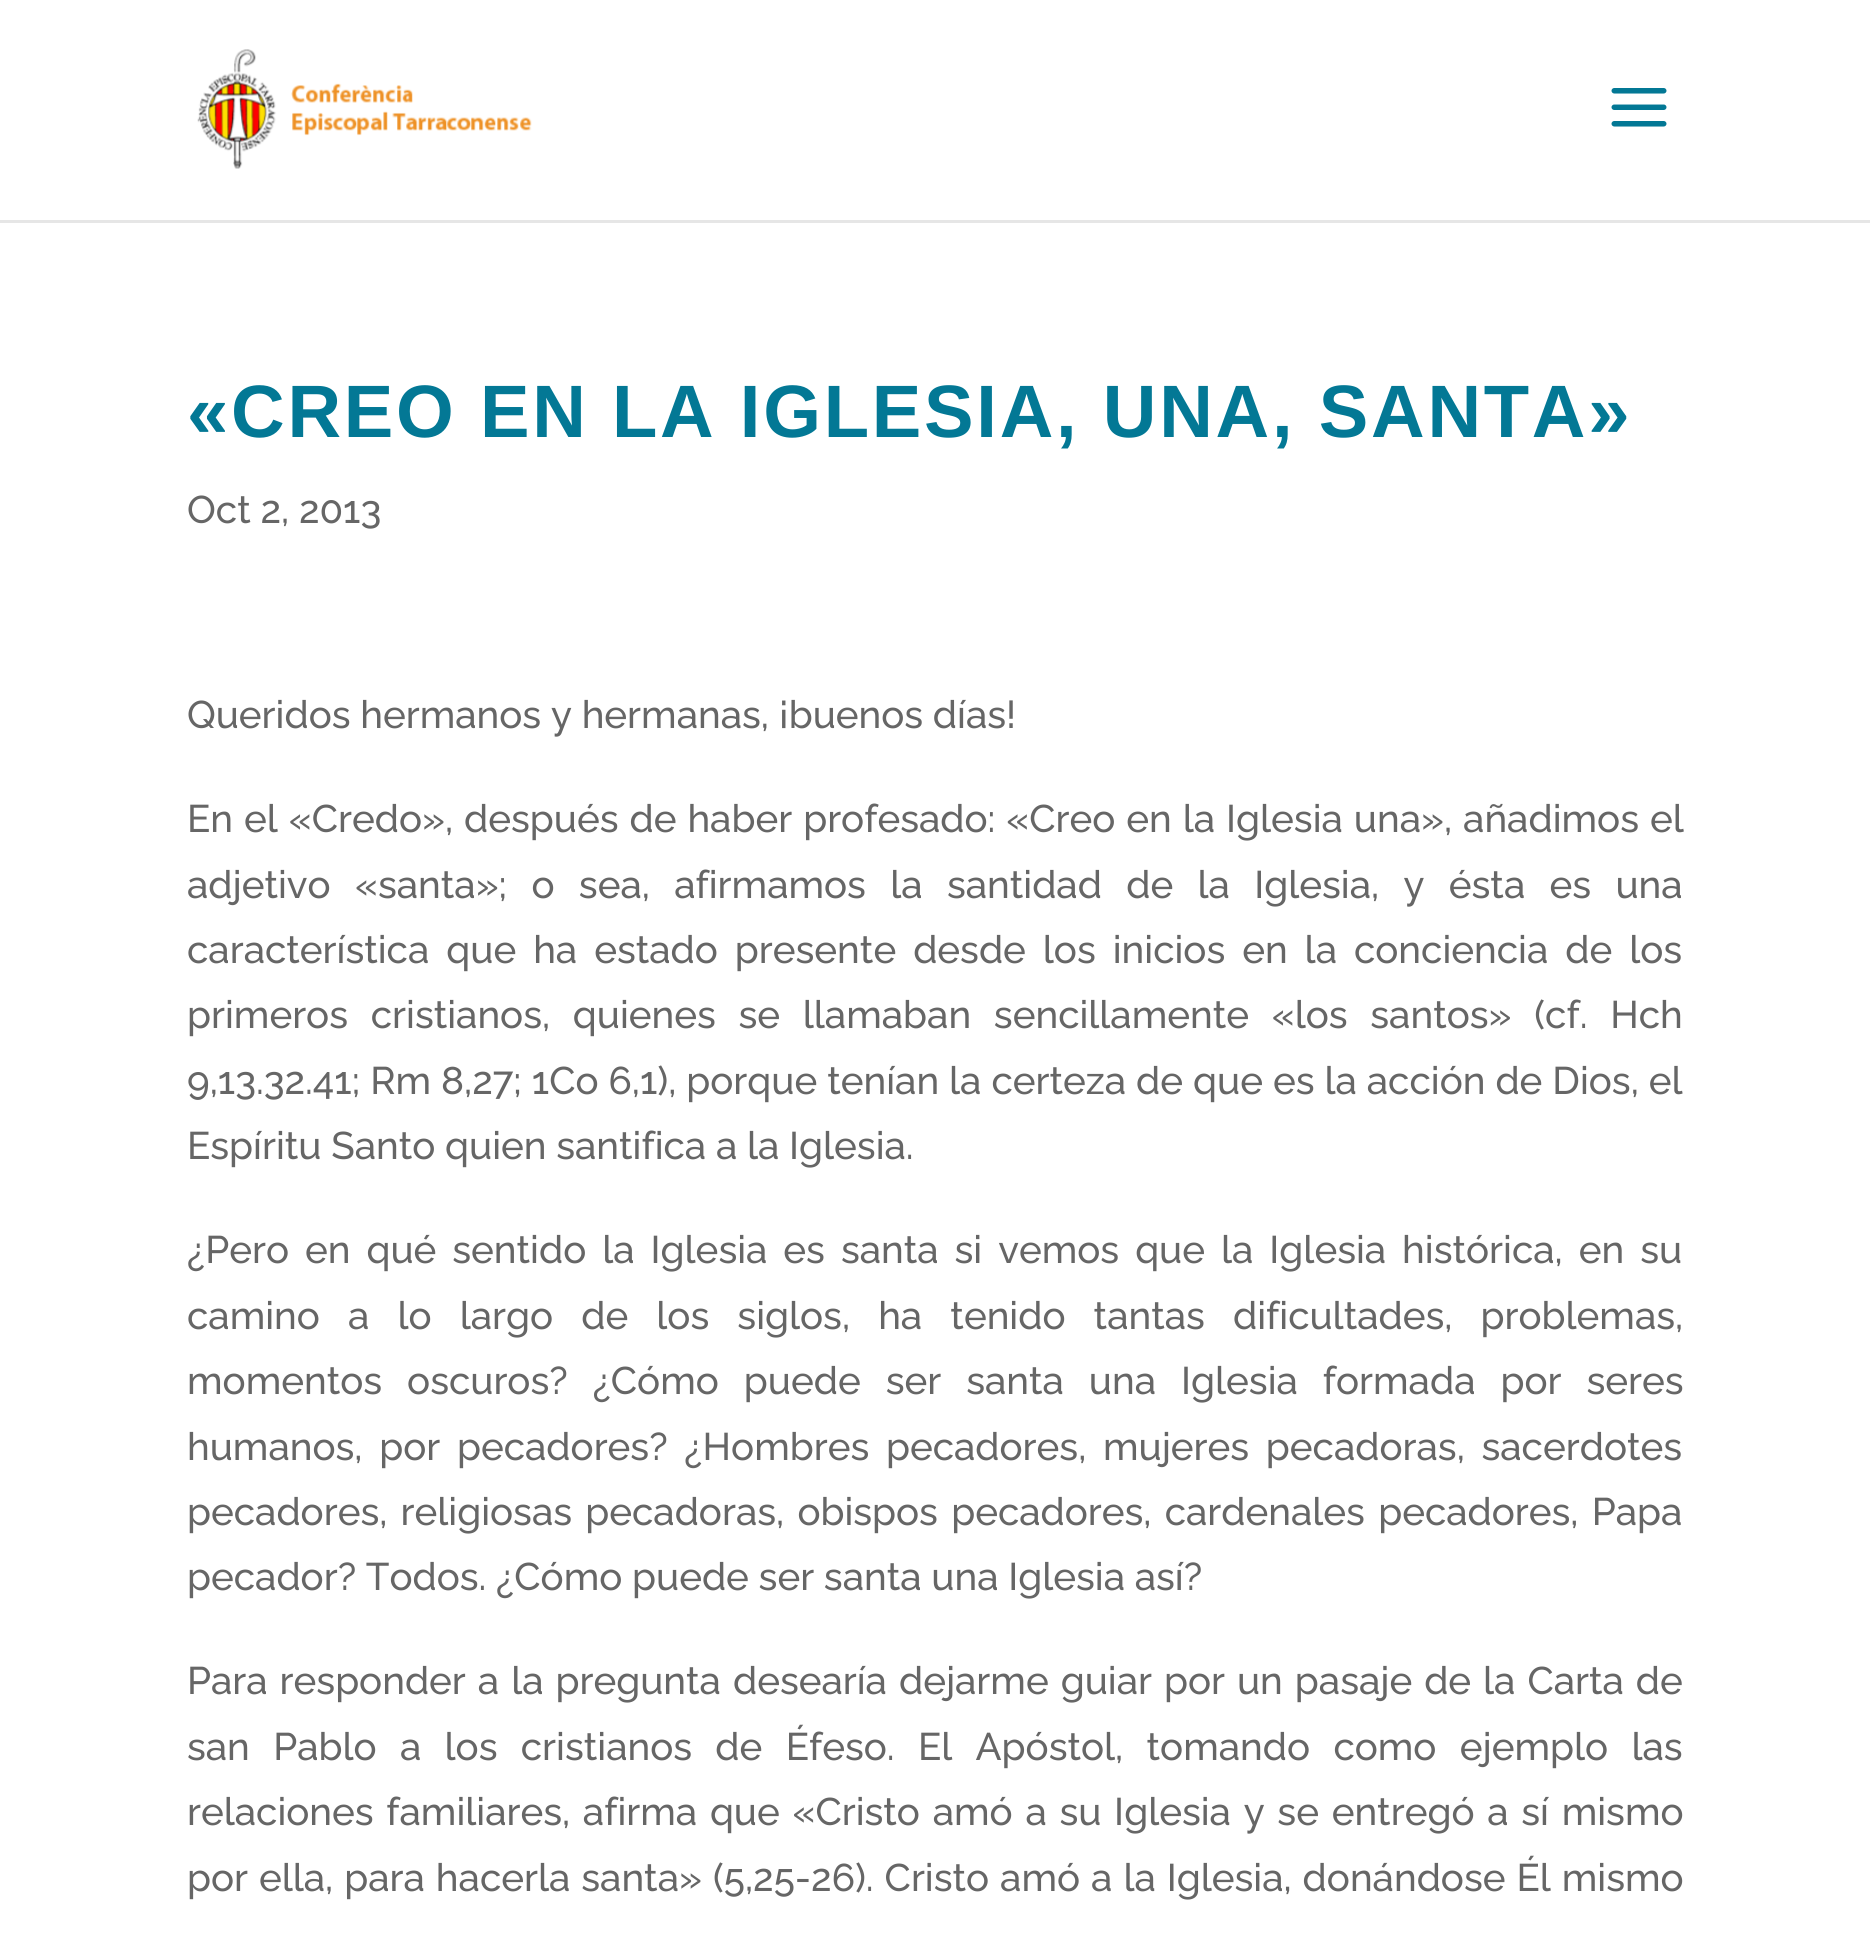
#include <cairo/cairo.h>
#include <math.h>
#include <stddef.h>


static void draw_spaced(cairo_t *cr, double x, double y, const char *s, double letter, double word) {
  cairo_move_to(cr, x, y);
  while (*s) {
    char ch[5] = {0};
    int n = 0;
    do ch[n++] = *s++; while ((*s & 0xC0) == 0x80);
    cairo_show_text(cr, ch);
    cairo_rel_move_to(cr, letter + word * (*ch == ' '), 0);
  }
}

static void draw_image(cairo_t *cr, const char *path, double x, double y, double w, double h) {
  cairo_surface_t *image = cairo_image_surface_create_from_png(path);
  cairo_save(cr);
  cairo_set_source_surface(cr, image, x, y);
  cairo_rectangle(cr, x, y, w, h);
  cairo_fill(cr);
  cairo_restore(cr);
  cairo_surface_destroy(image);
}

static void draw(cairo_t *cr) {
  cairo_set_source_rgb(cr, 1, 1, 1);
  cairo_paint(cr);
  cairo_set_source_rgb(cr, 230 / 255.0, 230 / 255.0, 230 / 255.0);
  cairo_rectangle(cr, 0, 220, 1870, 3);
  cairo_fill(cr);
  draw_image(cr, "images/1.png", 197, 49, 335, 120);
  draw_image(cr, "images/2.png", 1611, 88, 56, 39);
  cairo_select_font_face(cr, "Liberation Sans", CAIRO_FONT_SLANT_NORMAL, CAIRO_FONT_WEIGHT_BOLD);
  cairo_set_font_size(cr, 74.25);
  cairo_set_source_rgb(cr, 3 / 255.0, 120 / 255.0, 149 / 255.0);
  draw_spaced(cr, 187, 437, "«CREO EN LA IGLESIA, UNA, SANTA»", 2.75, 0);
  cairo_select_font_face(cr, "Raleway Medium", CAIRO_FONT_SLANT_NORMAL, CAIRO_FONT_WEIGHT_NORMAL);
  cairo_set_font_size(cr, 38.5);
  cairo_set_source_rgb(cr, 102 / 255.0, 102 / 255.0, 102 / 255.0);
  cairo_move_to(cr, 187, 523);
  cairo_show_text(cr, "Oct 2, 2013");
  cairo_move_to(cr, 187, 728);
  cairo_show_text(cr, "Queridos hermanos y hermanas, ¡buenos días!");
  draw_spaced(cr, 187, 832, "En el «Credo», después de haber profesado: «Creo en la Iglesia una», añadimos el", 0, 1.25);
  draw_spaced(cr, 187, 898, "adjetivo «santa»; o sea, afirmamos la santidad de la Iglesia, y ésta es una", 0, 14.6);
  draw_spaced(cr, 187, 963, "característica que ha estado presente desde los inicios en la conciencia de los", 0, 7.25);
  draw_spaced(cr, 187, 1028, "primeros cristianos, quienes se llamaban sencillamente «los santos» (cf. Hch", 0, 13);
  draw_spaced(cr, 187, 1094, "9,13.32.41; Rm 8,27; 1Co 6,1), porque tenían la certeza de que es la acción de Dios, el", 0, 0.25);
  cairo_move_to(cr, 187, 1159);
  cairo_show_text(cr, "Espíritu Santo quien santifica a la Iglesia.");
  draw_spaced(cr, 187, 1263, "¿Pero en qué sentido la Iglesia es santa si vemos que la Iglesia histórica, en su", 0, 6.25);
  draw_spaced(cr, 187, 1329, "camino a lo largo de los siglos, ha tenido tantas dificultades, problemas,", 0, 18.4);
  draw_spaced(cr, 187, 1394, "momentos oscuros? ¿Cómo puede ser santa una Iglesia formada por seres", 0, 15.25);
  draw_spaced(cr, 187, 1460, "humanos, por pecadores? ¿Hombres pecadores, mujeres pecadoras, sacerdotes", 0, 7);
  draw_spaced(cr, 187, 1525, "pecadores, religiosas pecadoras, obispos pecadores, cardenales pecadores, Papa", 0, 3.5);
  cairo_move_to(cr, 187, 1590);
  cairo_show_text(cr, "pecador? Todos. ¿Cómo puede ser santa una Iglesia así?");
  draw_spaced(cr, 187, 1694, "Para responder a la pregunta desearía dejarme guiar por un pasaje de la Carta de", 0, 2.25);
  draw_spaced(cr, 187, 1760, "san Pablo a los cristianos de Éfeso. El Apóstol, tomando como ejemplo las", 0, 13.6);
  draw_spaced(cr, 187, 1825, "relaciones familiares, afirma que «Cristo amó a su Iglesia y se entregó a sí mismo", 0, 3);
  draw_spaced(cr, 187, 1891, "por ella, para hacerla santa» (5,25-26). Cristo amó a la Iglesia, donándose Él mismo", 0, 1.25);
}

int main(void) {
  cairo_surface_t *surface = cairo_image_surface_create(CAIRO_FORMAT_RGB24, 1870, 1936);
  cairo_t *cr = cairo_create(surface);
  cairo_font_options_t *options = cairo_font_options_create();
  cairo_font_options_set_hint_metrics(options, CAIRO_HINT_METRICS_OFF);
  cairo_font_options_set_hint_style(options, CAIRO_HINT_STYLE_NONE);
  cairo_set_font_options(cr, options);
  cairo_set_miter_limit(cr, 4);
  draw(cr);
  cairo_surface_write_to_png(surface, "out.png");
  cairo_font_options_destroy(options);
  cairo_destroy(cr);
  cairo_surface_destroy(surface);
  return 0;
}
